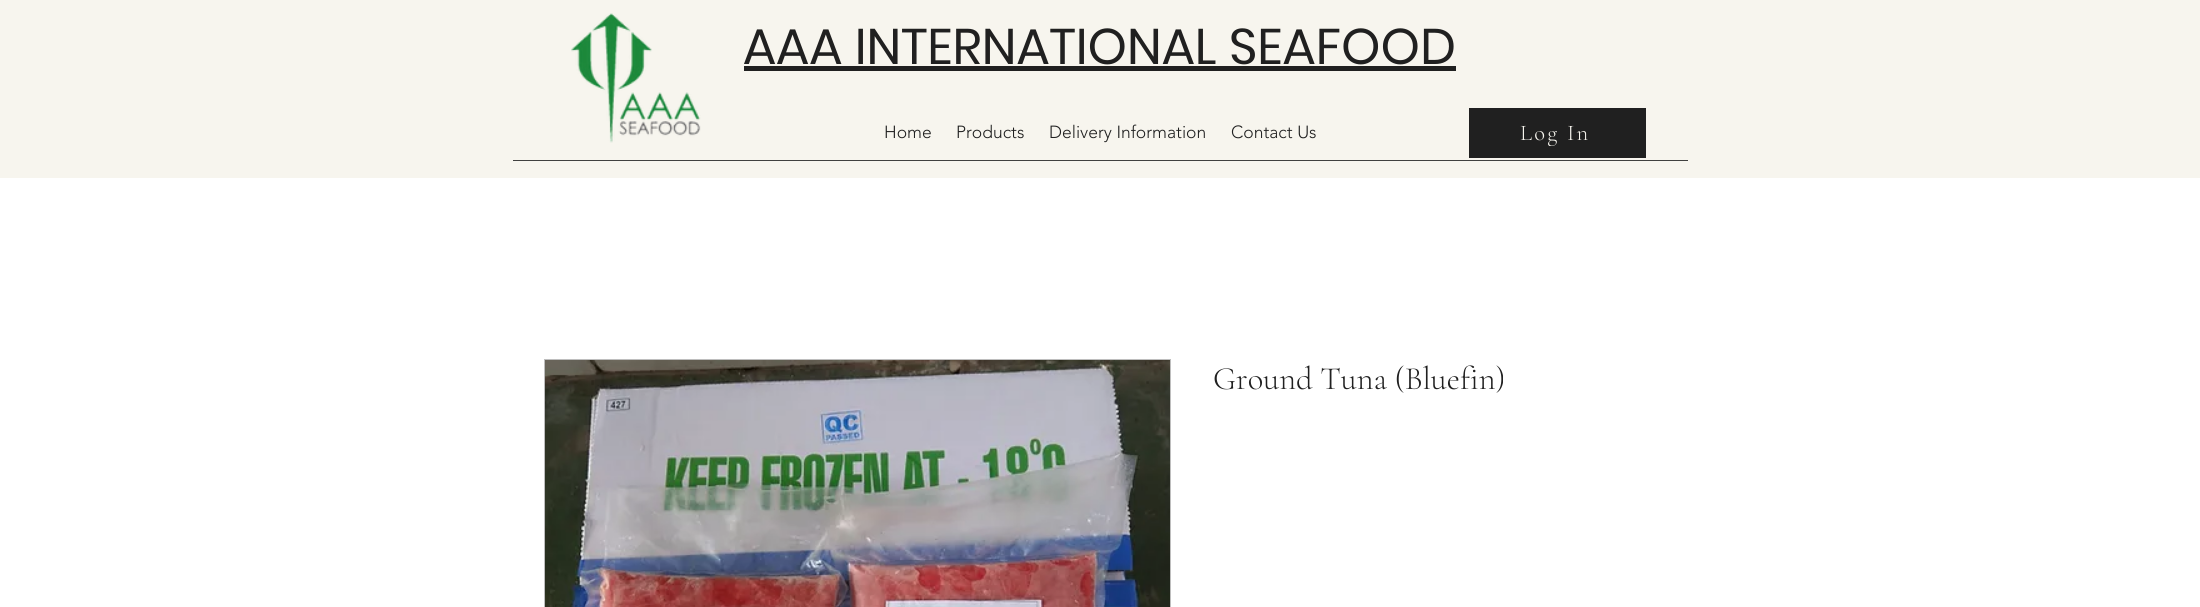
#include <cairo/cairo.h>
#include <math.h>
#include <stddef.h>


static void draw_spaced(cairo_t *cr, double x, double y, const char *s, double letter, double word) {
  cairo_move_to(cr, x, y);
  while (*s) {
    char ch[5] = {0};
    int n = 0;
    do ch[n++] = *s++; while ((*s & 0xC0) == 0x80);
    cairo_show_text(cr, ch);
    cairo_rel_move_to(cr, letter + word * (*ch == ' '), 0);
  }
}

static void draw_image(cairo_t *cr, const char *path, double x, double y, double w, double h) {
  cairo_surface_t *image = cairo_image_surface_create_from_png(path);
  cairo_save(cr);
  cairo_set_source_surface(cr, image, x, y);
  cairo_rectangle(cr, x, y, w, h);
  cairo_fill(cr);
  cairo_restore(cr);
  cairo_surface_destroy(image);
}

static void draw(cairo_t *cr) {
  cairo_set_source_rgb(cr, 1, 1, 1);
  cairo_paint(cr);
  cairo_set_source_rgb(cr, 247 / 255.0, 245 / 255.0, 238 / 255.0);
  cairo_rectangle(cr, 0, 0, 2200, 178);
  cairo_fill(cr);
  draw_image(cr, "images/1.png", 571, 13, 130, 130);
  cairo_set_source_rgb(cr, 32 / 255.0, 32 / 255.0, 32 / 255.0);
  cairo_rectangle(cr, 744, 66, 712, 5);
  cairo_fill(cr);
  cairo_rectangle(cr, 1469, 108, 177, 50);
  cairo_fill(cr);
  cairo_set_source_rgb(cr, 64 / 255.0, 64 / 255.0, 63 / 255.0);
  cairo_rectangle(cr, 513, 160, 1175, 1);
  cairo_fill(cr);
  cairo_rectangle(cr, 544.5, 359.5, 626, 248);
  cairo_set_source_rgb(cr, 190 / 255.0, 190 / 255.0, 190 / 255.0);
  cairo_set_line_width(cr, 1);
  cairo_stroke(cr);
  draw_image(cr, "images/2.png", 545, 360, 625, 247);
  cairo_select_font_face(cr, "Poppins", CAIRO_FONT_SLANT_NORMAL, CAIRO_FONT_WEIGHT_NORMAL);
  cairo_set_font_size(cr, 50);
  cairo_set_source_rgb(cr, 32 / 255.0, 32 / 255.0, 32 / 255.0);
  cairo_move_to(cr, 743, 64);
  cairo_show_text(cr, "AAA INTERNATIONAL SEAFOOD");
  cairo_select_font_face(cr, "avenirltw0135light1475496 Light", CAIRO_FONT_SLANT_NORMAL, CAIRO_FONT_WEIGHT_NORMAL);
  cairo_set_font_size(cr, 17.5);
  cairo_move_to(cr, 884, 138);
  cairo_show_text(cr, "Home");
  cairo_move_to(cr, 956, 138);
  cairo_show_text(cr, "Products");
  cairo_move_to(cr, 1049, 138);
  cairo_show_text(cr, "Delivery Information");
  cairo_move_to(cr, 1231, 138);
  cairo_show_text(cr, "Contact Us");
  cairo_save(cr);
  cairo_rectangle(cr, 1520, 119, 70, 27);
  cairo_clip(cr);
  cairo_select_font_face(cr, "Cormorant Garamond Light", CAIRO_FONT_SLANT_NORMAL, CAIRO_FONT_WEIGHT_NORMAL);
  cairo_set_font_size(cr, 22.5);
  cairo_set_source_rgb(cr, 247 / 255.0, 245 / 255.0, 238 / 255.0);
  draw_spaced(cr, 1520, 140, "Log In", 2.25, 0);
  cairo_restore(cr);
  cairo_select_font_face(cr, "Cormorant Garamond Light", CAIRO_FONT_SLANT_NORMAL, CAIRO_FONT_WEIGHT_NORMAL);
  cairo_set_font_size(cr, 32.5);
  cairo_move_to(cr, 1213, 389);
  cairo_show_text(cr, "Ground Tuna (Bluefin)");
}

int main(void) {
  cairo_surface_t *surface = cairo_image_surface_create(CAIRO_FORMAT_RGB24, 2200, 607);
  cairo_t *cr = cairo_create(surface);
  cairo_font_options_t *options = cairo_font_options_create();
  cairo_font_options_set_hint_metrics(options, CAIRO_HINT_METRICS_OFF);
  cairo_font_options_set_hint_style(options, CAIRO_HINT_STYLE_NONE);
  cairo_set_font_options(cr, options);
  cairo_set_miter_limit(cr, 4);
  draw(cr);
  cairo_surface_write_to_png(surface, "out.png");
  cairo_font_options_destroy(options);
  cairo_destroy(cr);
  cairo_surface_destroy(surface);
  return 0;
}
